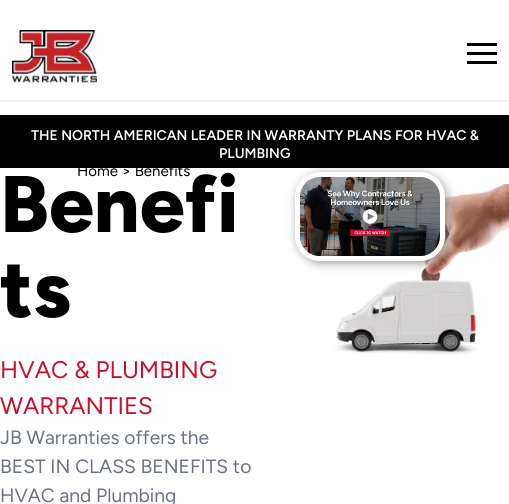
#include <cairo/cairo.h>
#include <math.h>
#include <stddef.h>


static void rounded_rect(cairo_t *cr, double x, double y, double w, double h, double r) {
  cairo_new_sub_path(cr);
  cairo_arc(cr, x + w - r, y + h - r, r, 0, M_PI / 2);
  cairo_arc(cr, x + r, y + h - r, r, M_PI / 2, M_PI);
  cairo_arc(cr, x + r, y + r, r, M_PI, 1.5 * M_PI);
  cairo_arc(cr, x + w - r, y + r, r, 1.5 * M_PI, 2 * M_PI);
  cairo_close_path(cr);
}

static void draw_shadow(cairo_t *cr, double x, double y, double w, double h, double r, double blur, double alpha) {
  cairo_push_group_with_content(cr, CAIRO_CONTENT_ALPHA);
  cairo_set_operator(cr, CAIRO_OPERATOR_SOURCE);
  for (int i = 15; i >= -15 && fmin(w, h) + blur * i / 3 > 0; i -= 2) {
    double e = blur * i / 6;
    cairo_set_source_rgba(cr, 0, 0, 0, alpha * erfc((i - 1) / 8.5) / 2);
    rounded_rect(cr, x - e, y - e, w + 2 * e, h + 2 * e, fmax(0, fmin(r + e + blur * .6, fmin(w, h) / 2 + e)));
    cairo_fill(cr);
  }
  cairo_pattern_t *soft = cairo_pop_group(cr);
  cairo_mask(cr, soft);
  cairo_pattern_destroy(soft);
}

static void draw_image(cairo_t *cr, const char *path, double x, double y, double w, double h) {
  cairo_surface_t *image = cairo_image_surface_create_from_png(path);
  cairo_save(cr);
  cairo_set_source_surface(cr, image, x, y);
  cairo_rectangle(cr, x, y, w, h);
  cairo_fill(cr);
  cairo_restore(cr);
  cairo_surface_destroy(image);
}

static void draw(cairo_t *cr) {
  cairo_set_source_rgb(cr, 1, 1, 1);
  cairo_paint(cr);
  cairo_save(cr);
  cairo_rectangle(cr, 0, 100, 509, 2);
  cairo_clip(cr);
  cairo_set_source_rgb(cr, 0, 0, 0);
  draw_shadow(cr, 0, 1, 509, 100, 0, 1.5, 0.1);
  cairo_restore(cr);
  draw_image(cr, "images/1.png", 12, 30, 85, 53);
  cairo_set_source_rgb(cr, 0, 0, 0);
  cairo_rectangle(cr, 467, 52, 30, 3);
  cairo_fill(cr);
  cairo_rectangle(cr, 467, 43, 30, 3);
  cairo_fill(cr);
  cairo_rectangle(cr, 467, 61, 30, 3);
  cairo_fill(cr);
  draw_image(cr, "images/2.png", 334, 184, 175, 172);
  cairo_set_source_rgb(cr, 153 / 255.0, 153 / 255.0, 153 / 255.0);
  draw_shadow(cr, 297, 174, 150, 89, 25, 5, 1);
  cairo_set_source_rgb(cr, 0, 0, 0);
  cairo_rectangle(cr, 0, 115, 509, 53);
  cairo_fill(cr);
  rounded_rect(cr, 297.5, 174.5, 145, 84, 22.5);
  cairo_set_source_rgb(cr, 1, 1, 1);
  cairo_set_line_width(cr, 5);
  cairo_stroke(cr);
  draw_image(cr, "images/3.png", 300, 177, 140, 79);
  cairo_select_font_face(cr, "Figtree SemiBold", CAIRO_FONT_SLANT_NORMAL, CAIRO_FONT_WEIGHT_NORMAL);
  cairo_set_font_size(cr, 14);
  cairo_move_to(cr, 31, 140);
  cairo_show_text(cr, "THE NORTH AMERICAN LEADER IN WARRANTY PLANS FOR HVAC &");
  cairo_move_to(cr, 219, 158);
  cairo_show_text(cr, "PLUMBING");
  cairo_select_font_face(cr, "Figtree ExtraBold", CAIRO_FONT_SLANT_NORMAL, CAIRO_FONT_WEIGHT_NORMAL);
  cairo_set_font_size(cr, 80);
  cairo_set_source_rgb(cr, 0, 0, 0);
  cairo_move_to(cr, 0, 232);
  cairo_show_text(cr, "Benefi");
  cairo_select_font_face(cr, "Figtree", CAIRO_FONT_SLANT_NORMAL, CAIRO_FONT_WEIGHT_NORMAL);
  cairo_set_font_size(cr, 15);
  cairo_move_to(cr, 77, 176);
  cairo_show_text(cr, "Home > Benefits");
  cairo_select_font_face(cr, "Figtree ExtraBold", CAIRO_FONT_SLANT_NORMAL, CAIRO_FONT_WEIGHT_NORMAL);
  cairo_set_font_size(cr, 80);
  cairo_move_to(cr, 0, 317);
  cairo_show_text(cr, "ts");
  cairo_select_font_face(cr, "Figtree", CAIRO_FONT_SLANT_NORMAL, CAIRO_FONT_WEIGHT_NORMAL);
  cairo_set_font_size(cr, 24);
  cairo_set_source_rgb(cr, 200 / 255.0, 16 / 255.0, 46 / 255.0);
  cairo_move_to(cr, 0, 378);
  cairo_show_text(cr, "HVAC & PLUMBING");
  cairo_move_to(cr, 0, 414);
  cairo_show_text(cr, "WARRANTIES");
  cairo_set_font_size(cr, 19.25);
  cairo_set_source_rgb(cr, 107 / 255.0, 114 / 255.0, 128 / 255.0);
  cairo_move_to(cr, 0, 444);
  cairo_show_text(cr, "JB Warranties offers the");
  cairo_move_to(cr, 0, 473);
  cairo_show_text(cr, "BEST IN CLASS BENEFITS to");
  cairo_move_to(cr, 0, 502);
  cairo_show_text(cr, "HVAC and Plumbing");
}

int main(void) {
  cairo_surface_t *surface = cairo_image_surface_create(CAIRO_FORMAT_RGB24, 509, 504);
  cairo_t *cr = cairo_create(surface);
  cairo_font_options_t *options = cairo_font_options_create();
  cairo_font_options_set_hint_metrics(options, CAIRO_HINT_METRICS_OFF);
  cairo_font_options_set_hint_style(options, CAIRO_HINT_STYLE_NONE);
  cairo_set_font_options(cr, options);
  cairo_set_miter_limit(cr, 4);
  draw(cr);
  cairo_surface_write_to_png(surface, "out.png");
  cairo_font_options_destroy(options);
  cairo_destroy(cr);
  cairo_surface_destroy(surface);
  return 0;
}
